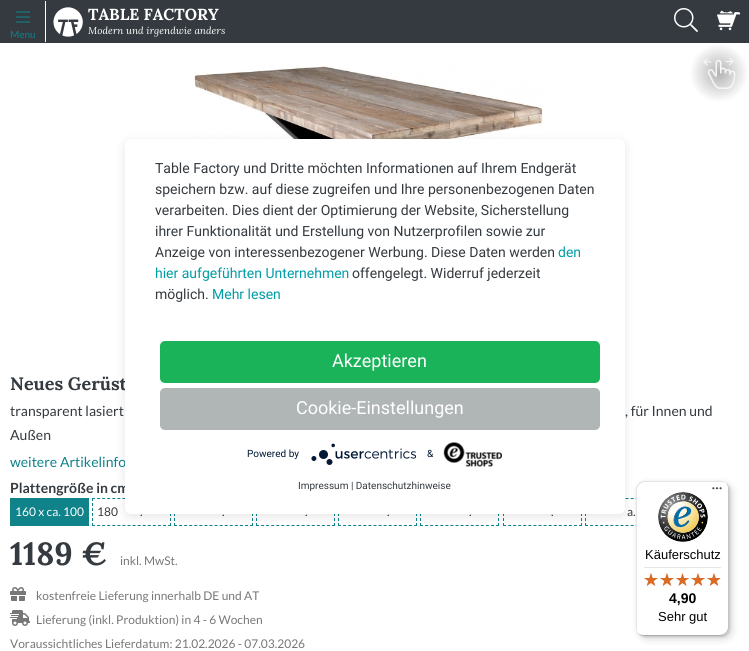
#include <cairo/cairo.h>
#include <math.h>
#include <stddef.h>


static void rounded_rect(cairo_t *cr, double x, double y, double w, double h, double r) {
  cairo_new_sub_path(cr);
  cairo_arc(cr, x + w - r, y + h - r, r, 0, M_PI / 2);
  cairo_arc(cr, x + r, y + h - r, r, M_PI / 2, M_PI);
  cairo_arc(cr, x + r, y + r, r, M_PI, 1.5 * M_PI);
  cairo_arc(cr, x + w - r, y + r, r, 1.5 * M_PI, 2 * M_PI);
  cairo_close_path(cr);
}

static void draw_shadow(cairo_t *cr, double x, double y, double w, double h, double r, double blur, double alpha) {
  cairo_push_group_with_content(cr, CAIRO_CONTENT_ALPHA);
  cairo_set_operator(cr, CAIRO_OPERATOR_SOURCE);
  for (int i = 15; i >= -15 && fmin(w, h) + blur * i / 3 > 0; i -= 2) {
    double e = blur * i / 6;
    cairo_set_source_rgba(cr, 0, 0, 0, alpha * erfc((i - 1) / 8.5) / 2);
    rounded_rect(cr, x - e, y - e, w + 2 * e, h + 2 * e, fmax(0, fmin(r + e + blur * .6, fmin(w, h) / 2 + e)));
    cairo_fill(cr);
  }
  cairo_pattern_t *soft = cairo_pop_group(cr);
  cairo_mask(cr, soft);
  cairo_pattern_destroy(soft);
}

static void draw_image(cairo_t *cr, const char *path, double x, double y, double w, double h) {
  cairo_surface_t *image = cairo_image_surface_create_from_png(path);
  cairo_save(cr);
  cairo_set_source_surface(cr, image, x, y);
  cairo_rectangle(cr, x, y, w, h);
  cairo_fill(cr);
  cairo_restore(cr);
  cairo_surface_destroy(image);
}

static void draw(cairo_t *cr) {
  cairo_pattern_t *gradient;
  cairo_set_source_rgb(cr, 52 / 255.0, 58 / 255.0, 63 / 255.0);
  cairo_paint(cr);
  draw_image(cr, "images/1.png", 53, 7, 30, 30);
  draw_image(cr, "images/2.png", 674, 8, 24, 24);
  draw_image(cr, "images/3.png", 717, 10, 24, 21);
  draw_image(cr, "images/4.png", 16, 11, 14, 12);
  cairo_set_source_rgb(cr, 1, 1, 1);
  cairo_rectangle(cr, 45, 1, 1, 41);
  cairo_fill(cr);
  cairo_rectangle(cr, 0, 43, 749, 608);
  cairo_fill(cr);
  draw_image(cr, "images/7.png", 194, 66, 349, 73);
  cairo_new_path(cr);
  cairo_move_to(cr, 92, 498.5);
  cairo_line_to(cr, 171, 498.5);
  cairo_set_source_rgb(cr, 15 / 255.0, 130 / 255.0, 138 / 255.0);
  cairo_set_line_width(cr, 1);
  cairo_set_dash(cr, (double[]){3, 2.07}, 2, 0);
  cairo_stroke(cr);
  cairo_new_path(cr);
  cairo_move_to(cr, 170.5, 498);
  cairo_line_to(cr, 170.5, 526);
  cairo_set_dash(cr, (double[]){3, 2}, 2, 0);
  cairo_stroke(cr);
  cairo_new_path(cr);
  cairo_move_to(cr, 92, 525.5);
  cairo_line_to(cr, 171, 525.5);
  cairo_set_dash(cr, (double[]){3, 2.07}, 2, 0);
  cairo_stroke(cr);
  cairo_new_path(cr);
  cairo_move_to(cr, 252.5, 498);
  cairo_line_to(cr, 252.5, 526);
  cairo_set_dash(cr, (double[]){3, 2}, 2, 0);
  cairo_stroke(cr);
  cairo_new_path(cr);
  cairo_move_to(cr, 174, 525.5);
  cairo_line_to(cr, 253, 525.5);
  cairo_set_dash(cr, (double[]){3, 2.07}, 2, 0);
  cairo_stroke(cr);
  cairo_new_path(cr);
  cairo_move_to(cr, 174.5, 498);
  cairo_line_to(cr, 174.5, 526);
  cairo_set_dash(cr, (double[]){3, 2}, 2, 0);
  cairo_stroke(cr);
  cairo_new_path(cr);
  cairo_move_to(cr, 334.5, 498);
  cairo_line_to(cr, 334.5, 526);
  cairo_stroke(cr);
  cairo_new_path(cr);
  cairo_move_to(cr, 256, 525.5);
  cairo_line_to(cr, 335, 525.5);
  cairo_set_dash(cr, (double[]){3, 2.07}, 2, 0);
  cairo_stroke(cr);
  cairo_new_path(cr);
  cairo_move_to(cr, 256.5, 498);
  cairo_line_to(cr, 256.5, 526);
  cairo_set_dash(cr, (double[]){3, 2}, 2, 0);
  cairo_stroke(cr);
  cairo_new_path(cr);
  cairo_move_to(cr, 416.5, 498);
  cairo_line_to(cr, 416.5, 526);
  cairo_stroke(cr);
  cairo_new_path(cr);
  cairo_move_to(cr, 338, 525.5);
  cairo_line_to(cr, 417, 525.5);
  cairo_set_dash(cr, (double[]){3, 2.07}, 2, 0);
  cairo_stroke(cr);
  cairo_new_path(cr);
  cairo_move_to(cr, 338.5, 498);
  cairo_line_to(cr, 338.5, 526);
  cairo_set_dash(cr, (double[]){3, 2}, 2, 0);
  cairo_stroke(cr);
  cairo_new_path(cr);
  cairo_move_to(cr, 498.5, 498);
  cairo_line_to(cr, 498.5, 526);
  cairo_stroke(cr);
  cairo_new_path(cr);
  cairo_move_to(cr, 420, 525.5);
  cairo_line_to(cr, 499, 525.5);
  cairo_set_dash(cr, (double[]){3, 2.07}, 2, 0);
  cairo_stroke(cr);
  cairo_new_path(cr);
  cairo_move_to(cr, 420.5, 498);
  cairo_line_to(cr, 420.5, 526);
  cairo_set_dash(cr, (double[]){3, 2}, 2, 0);
  cairo_stroke(cr);
  cairo_new_path(cr);
  cairo_move_to(cr, 581.5, 498);
  cairo_line_to(cr, 581.5, 526);
  cairo_stroke(cr);
  cairo_new_path(cr);
  cairo_move_to(cr, 503, 525.5);
  cairo_line_to(cr, 582, 525.5);
  cairo_set_dash(cr, (double[]){3, 2.07}, 2, 0);
  cairo_stroke(cr);
  cairo_new_path(cr);
  cairo_move_to(cr, 503.5, 498);
  cairo_line_to(cr, 503.5, 526);
  cairo_set_dash(cr, (double[]){3, 2}, 2, 0);
  cairo_stroke(cr);
  cairo_new_path(cr);
  cairo_move_to(cr, 585, 498.5);
  cairo_line_to(cr, 664, 498.5);
  cairo_set_dash(cr, (double[]){3, 2.07}, 2, 0);
  cairo_stroke(cr);
  cairo_new_path(cr);
  cairo_move_to(cr, 585, 525.5);
  cairo_line_to(cr, 664, 525.5);
  cairo_stroke(cr);
  cairo_new_path(cr);
  cairo_move_to(cr, 585.5, 498);
  cairo_line_to(cr, 585.5, 526);
  cairo_set_dash(cr, (double[]){3, 2}, 2, 0);
  cairo_stroke(cr);
  cairo_set_source_rgb(cr, 0, 0, 0);
  draw_shadow(cr, 125, 142, 500, 375, 5, 5, 0.1);
  cairo_set_source_rgb(cr, 15 / 255.0, 130 / 255.0, 138 / 255.0);
  cairo_rectangle(cr, 10, 498, 79, 28);
  cairo_fill(cr);
  cairo_new_path(cr);
  cairo_move_to(cr, 92.5, 498);
  cairo_line_to(cr, 92.5, 526);
  cairo_stroke(cr);
  cairo_save(cr);
  rounded_rect(cr, 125, 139, 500, 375, 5);
  cairo_clip(cr);
  cairo_set_source_rgb(cr, 0, 0, 0);
  draw_shadow(cr, 125, 145, 500, 375, 0, 18, 0.3);
  cairo_restore(cr);
  gradient = cairo_pattern_create_radial(719, 73, 0, 719, 73, 42);
  cairo_pattern_add_color_stop_rgba(gradient, 0, 179 / 255.0, 179 / 255.0, 179 / 255.0, 1);
  cairo_pattern_add_color_stop_rgba(gradient, 0.7, 1, 1, 1, 1);
  cairo_set_source(cr, gradient);
  cairo_pattern_destroy(gradient);
  cairo_arc(cr, 719, 73, 30, 0, 2 * M_PI);
  cairo_fill(cr);
  draw_image(cr, "images/8.png", 703, 58, 33, 31);
  draw_image(cr, "images/9.png", 10, 587, 16, 14);
  draw_image(cr, "images/10.png", 10, 610, 20, 16);
  cairo_set_source_rgb(cr, 0, 0, 0);
  draw_shadow(cr, 639, 484, 93, 155, 8, 4, 0.15);
  draw_shadow(cr, 637, 482, 93, 155, 8, 1, 0.15);
  cairo_set_source_rgb(cr, 1, 1, 1);
  rounded_rect(cr, 636, 481, 93, 155, 8);
  cairo_fill(cr);
  cairo_set_source_rgb(cr, 229 / 255.0, 229 / 255.0, 229 / 255.0);
  cairo_new_path(cr);
  cairo_move_to(cr, 645, 482);
  cairo_line_to(cr, 722, 482);
  cairo_curve_to(cr, 724, 482, 726, 483, 728, 485);
  cairo_curve_to(cr, 726, 483, 724, 481, 721, 481);
  cairo_line_to(cr, 644, 481);
  cairo_curve_to(cr, 640, 481, 636, 485, 636, 489);
  cairo_line_to(cr, 636, 628);
  cairo_curve_to(cr, 636, 631, 638, 633, 640, 635);
  cairo_curve_to(cr, 638, 633, 637, 631, 637, 629);
  cairo_line_to(cr, 637, 490);
  cairo_curve_to(cr, 637, 486, 641, 482, 645, 482);
  cairo_close_path(cr);
  cairo_fill(cr);
  cairo_set_source_rgb(cr, 204 / 255.0, 204 / 255.0, 204 / 255.0);
  cairo_new_path(cr);
  cairo_move_to(cr, 637, 632);
  cairo_curve_to(cr, 639, 634, 641, 636, 644, 636);
  cairo_line_to(cr, 721, 636);
  cairo_curve_to(cr, 725, 636, 729, 632, 729, 628);
  cairo_line_to(cr, 729, 489);
  cairo_curve_to(cr, 729, 486, 727, 484, 725, 482);
  cairo_curve_to(cr, 727, 484, 728, 486, 728, 488);
  cairo_line_to(cr, 728, 627);
  cairo_curve_to(cr, 728, 631, 724, 635, 720, 635);
  cairo_line_to(cr, 643, 635);
  cairo_curve_to(cr, 641, 635, 639, 634, 637, 632);
  cairo_close_path(cr);
  cairo_fill(cr);
  cairo_set_source_rgba(cr, 50 / 255.0, 50 / 255.0, 50 / 255.0, 0.2);
  cairo_new_path(cr);
  cairo_move_to(cr, 638, 633);
  cairo_curve_to(cr, 639, 635, 642, 636, 644, 636);
  cairo_line_to(cr, 721, 636);
  cairo_curve_to(cr, 725, 636, 729, 632, 729, 628);
  cairo_line_to(cr, 729, 489);
  cairo_curve_to(cr, 729, 487, 728, 484, 726, 483);
  cairo_curve_to(cr, 727, 484, 728, 486, 728, 488);
  cairo_line_to(cr, 728, 627);
  cairo_curve_to(cr, 728, 632, 725, 635, 720, 635);
  cairo_line_to(cr, 643, 635);
  cairo_curve_to(cr, 641, 635, 639, 634, 638, 633);
  cairo_close_path(cr);
  cairo_fill(cr);
  cairo_set_source_rgba(cr, 1, 1, 1, 0.3);
  cairo_new_path(cr);
  cairo_move_to(cr, 720, 636);
  cairo_line_to(cr, 721, 636);
  cairo_curve_to(cr, 725, 636, 729, 632, 729, 628);
  cairo_line_to(cr, 729, 489);
  cairo_curve_to(cr, 729, 487, 728, 484, 726, 483);
  cairo_curve_to(cr, 727, 484, 728, 486, 728, 488);
  cairo_line_to(cr, 728, 628);
  cairo_curve_to(cr, 728, 632, 725, 636, 720, 636);
  cairo_close_path(cr);
  cairo_fill(cr);
  draw_image(cr, "images/11.png", 712, 487, 10, 3);
  draw_image(cr, "images/12.png", 658, 492, 50, 50);
  cairo_set_source_rgb(cr, 229 / 255.0, 229 / 255.0, 229 / 255.0);
  cairo_rectangle(cr, 644, 567, 77, 1);
  cairo_fill(cr);
  draw_image(cr, "images/13.png", 644, 573, 14, 13);
  draw_image(cr, "images/13.png", 660, 573, 14, 13);
  draw_image(cr, "images/14.png", 676, 573, 13, 13);
  draw_image(cr, "images/13.png", 691, 573, 14, 13);
  draw_image(cr, "images/13.png", 707, 573, 14, 13);
  draw_image(cr, "images/15.png", 644, 573, 14, 13);
  draw_image(cr, "images/15.png", 660, 573, 14, 13);
  draw_image(cr, "images/16.png", 676, 573, 13, 13);
  draw_image(cr, "images/15.png", 691, 573, 14, 13);
  draw_image(cr, "images/17.png", 707, 573, 13, 13);
  cairo_select_font_face(cr, "Lora", CAIRO_FONT_SLANT_NORMAL, CAIRO_FONT_WEIGHT_BOLD);
  cairo_set_font_size(cr, 16);
  cairo_set_source_rgb(cr, 1, 1, 1);
  cairo_move_to(cr, 88, 20);
  cairo_show_text(cr, "TABLE FACTORY");
  cairo_select_font_face(cr, "Lora", CAIRO_FONT_SLANT_ITALIC, CAIRO_FONT_WEIGHT_NORMAL);
  cairo_set_font_size(cr, 10);
  cairo_move_to(cr, 88, 34);
  cairo_show_text(cr, "Modern und irgendwie anders");
  cairo_select_font_face(cr, "Lato", CAIRO_FONT_SLANT_NORMAL, CAIRO_FONT_WEIGHT_NORMAL);
  cairo_set_source_rgb(cr, 15 / 255.0, 130 / 255.0, 138 / 255.0);
  cairo_move_to(cr, 10, 38);
  cairo_show_text(cr, "Menu");
  cairo_select_font_face(cr, "Lora", CAIRO_FONT_SLANT_NORMAL, CAIRO_FONT_WEIGHT_BOLD);
  cairo_set_font_size(cr, 18);
  cairo_set_source_rgb(cr, 52 / 255.0, 58 / 255.0, 63 / 255.0);
  cairo_move_to(cr, 10, 390);
  cairo_show_text(cr, "Neues Gerüst");
  cairo_select_font_face(cr, "Lato", CAIRO_FONT_SLANT_NORMAL, CAIRO_FONT_WEIGHT_NORMAL);
  cairo_set_font_size(cr, 14);
  cairo_move_to(cr, 10, 416);
  cairo_show_text(cr, "transparent lasiert");
  cairo_move_to(cr, 625, 416);
  cairo_show_text(cr, ", für Innen und");
  cairo_move_to(cr, 10, 440);
  cairo_show_text(cr, "Außen");
  cairo_set_source_rgb(cr, 15 / 255.0, 130 / 255.0, 138 / 255.0);
  cairo_move_to(cr, 10, 467);
  cairo_show_text(cr, "weitere Artikelinfo");
  cairo_select_font_face(cr, "Lato", CAIRO_FONT_SLANT_NORMAL, CAIRO_FONT_WEIGHT_BOLD);
  cairo_set_source_rgb(cr, 52 / 255.0, 58 / 255.0, 63 / 255.0);
  cairo_move_to(cr, 10, 493);
  cairo_show_text(cr, "Plattengröße in cm");
  cairo_set_source_rgb(cr, 1, 1, 1);
  rounded_rect(cr, 125, 139, 500, 375, 5);
  cairo_fill(cr);
  draw_image(cr, "images/5.png", 311, 443, 106, 22);
  cairo_select_font_face(cr, "Roboto", CAIRO_FONT_SLANT_NORMAL, CAIRO_FONT_WEIGHT_NORMAL);
  cairo_set_source_rgb(cr, 0, 156 / 255.0, 167 / 255.0);
  cairo_move_to(cr, 212, 299);
  cairo_show_text(cr, "Mehr lesen");
  cairo_set_source_rgb(cr, 52 / 255.0, 58 / 255.0, 63 / 255.0);
  cairo_move_to(cr, 155, 299);
  cairo_show_text(cr, "möglich.");
  cairo_move_to(cr, 352, 278);
  cairo_show_text(cr, "offengelegt. Widerruf jederzeit");
  cairo_set_source_rgb(cr, 0, 156 / 255.0, 167 / 255.0);
  cairo_move_to(cr, 155, 278);
  cairo_show_text(cr, "hier aufgeführten Unternehmen");
  cairo_move_to(cr, 558, 257);
  cairo_show_text(cr, "den");
  cairo_set_source_rgb(cr, 52 / 255.0, 58 / 255.0, 63 / 255.0);
  cairo_move_to(cr, 155, 257);
  cairo_show_text(cr, "Anzeige von interessenbezogener Werbung. Diese Daten werden");
  cairo_move_to(cr, 155, 236);
  cairo_show_text(cr, "ihrer Funktionalität und Erstellung von Nutzerprofilen sowie zur");
  cairo_move_to(cr, 155, 215);
  cairo_show_text(cr, "verarbeiten. Dies dient der Optimierung der Website, Sicherstellung");
  cairo_move_to(cr, 155, 194);
  cairo_show_text(cr, "speichern bzw. auf diese zugreifen und Ihre personenbezogenen Daten");
  cairo_move_to(cr, 155, 173);
  cairo_show_text(cr, "Table Factory und Dritte möchten Informationen auf Ihrem Endgerät");
  cairo_set_font_size(cr, 10);
  cairo_move_to(cr, 298, 489);
  cairo_show_text(cr, "Impressum | Datenschutzhinweise");
  draw_image(cr, "images/6.png", 443, 442, 59, 25);
  cairo_set_source_rgb(cr, 2 / 255.0, 24 / 255.0, 54 / 255.0);
  cairo_move_to(cr, 427, 457);
  cairo_show_text(cr, "&");
  cairo_move_to(cr, 247, 457);
  cairo_show_text(cr, "Powered by");
  cairo_set_source_rgb(cr, 176 / 255.0, 181 / 255.0, 181 / 255.0);
  rounded_rect(cr, 160, 388, 440, 42, 5);
  cairo_fill(cr);
  cairo_set_font_size(cr, 18);
  cairo_set_source_rgb(cr, 1, 1, 1);
  cairo_move_to(cr, 296, 414);
  cairo_show_text(cr, "Cookie-Einstellungen");
  cairo_set_source_rgb(cr, 27 / 255.0, 179 / 255.0, 89 / 255.0);
  rounded_rect(cr, 160, 341, 440, 42, 5);
  cairo_fill(cr);
  cairo_set_source_rgb(cr, 1, 1, 1);
  cairo_move_to(cr, 332, 367);
  cairo_show_text(cr, "Akzeptieren");
  cairo_select_font_face(cr, "Lato", CAIRO_FONT_SLANT_NORMAL, CAIRO_FONT_WEIGHT_NORMAL);
  cairo_set_font_size(cr, 12);
  cairo_move_to(cr, 15, 516);
  cairo_show_text(cr, "160 x ca. 100");
  cairo_set_source_rgb(cr, 52 / 255.0, 58 / 255.0, 63 / 255.0);
  cairo_move_to(cr, 97, 516);
  cairo_show_text(cr, "180");
  cairo_move_to(cr, 140, 516);
  cairo_show_text(cr, ".");
  cairo_move_to(cr, 222, 516);
  cairo_show_text(cr, ".");
  cairo_move_to(cr, 305, 516);
  cairo_show_text(cr, ".");
  cairo_move_to(cr, 387, 516);
  cairo_show_text(cr, ".");
  cairo_move_to(cr, 469, 516);
  cairo_show_text(cr, ".");
  cairo_move_to(cr, 551, 516);
  cairo_show_text(cr, ".");
  cairo_move_to(cr, 627, 516);
  cairo_show_text(cr, "a.");
  cairo_select_font_face(cr, "Lora", CAIRO_FONT_SLANT_NORMAL, CAIRO_FONT_WEIGHT_BOLD);
  cairo_set_font_size(cr, 32);
  cairo_move_to(cr, 10, 565);
  cairo_show_text(cr, "1189 €");
  cairo_select_font_face(cr, "Lato", CAIRO_FONT_SLANT_NORMAL, CAIRO_FONT_WEIGHT_NORMAL);
  cairo_set_font_size(cr, 12);
  cairo_set_source_rgb(cr, 119 / 255.0, 119 / 255.0, 119 / 255.0);
  cairo_move_to(cr, 120, 565);
  cairo_show_text(cr, "inkl. MwSt.");
  cairo_move_to(cr, 36, 600);
  cairo_show_text(cr, "kostenfreie Lieferung innerhalb DE und AT");
  cairo_move_to(cr, 36, 624);
  cairo_show_text(cr, "Lieferung (inkl. Produktion) in 4 - 6 Wochen");
  cairo_move_to(cr, 10, 648);
  cairo_show_text(cr, "Voraussichtliches Lieferdatum: 21.02.2026 - 07.03.2026");
  cairo_select_font_face(cr, "Liberation Sans", CAIRO_FONT_SLANT_NORMAL, CAIRO_FONT_WEIGHT_NORMAL);
  cairo_set_font_size(cr, 13);
  cairo_set_source_rgb(cr, 0, 0, 0);
  cairo_move_to(cr, 645, 559);
  cairo_show_text(cr, "Käuferschutz");
  cairo_select_font_face(cr, "Liberation Sans", CAIRO_FONT_SLANT_NORMAL, CAIRO_FONT_WEIGHT_BOLD);
  cairo_set_font_size(cr, 14);
  cairo_move_to(cr, 669, 603);
  cairo_show_text(cr, "4,90");
  cairo_select_font_face(cr, "Liberation Sans", CAIRO_FONT_SLANT_NORMAL, CAIRO_FONT_WEIGHT_NORMAL);
  cairo_set_font_size(cr, 13);
  cairo_move_to(cr, 658, 621);
  cairo_show_text(cr, "Sehr gut");
}

int main(void) {
  cairo_surface_t *surface = cairo_image_surface_create(CAIRO_FORMAT_RGB24, 749, 651);
  cairo_t *cr = cairo_create(surface);
  cairo_font_options_t *options = cairo_font_options_create();
  cairo_font_options_set_hint_metrics(options, CAIRO_HINT_METRICS_OFF);
  cairo_font_options_set_hint_style(options, CAIRO_HINT_STYLE_NONE);
  cairo_set_font_options(cr, options);
  cairo_set_miter_limit(cr, 4);
  draw(cr);
  cairo_surface_write_to_png(surface, "out.png");
  cairo_font_options_destroy(options);
  cairo_destroy(cr);
  cairo_surface_destroy(surface);
  return 0;
}
